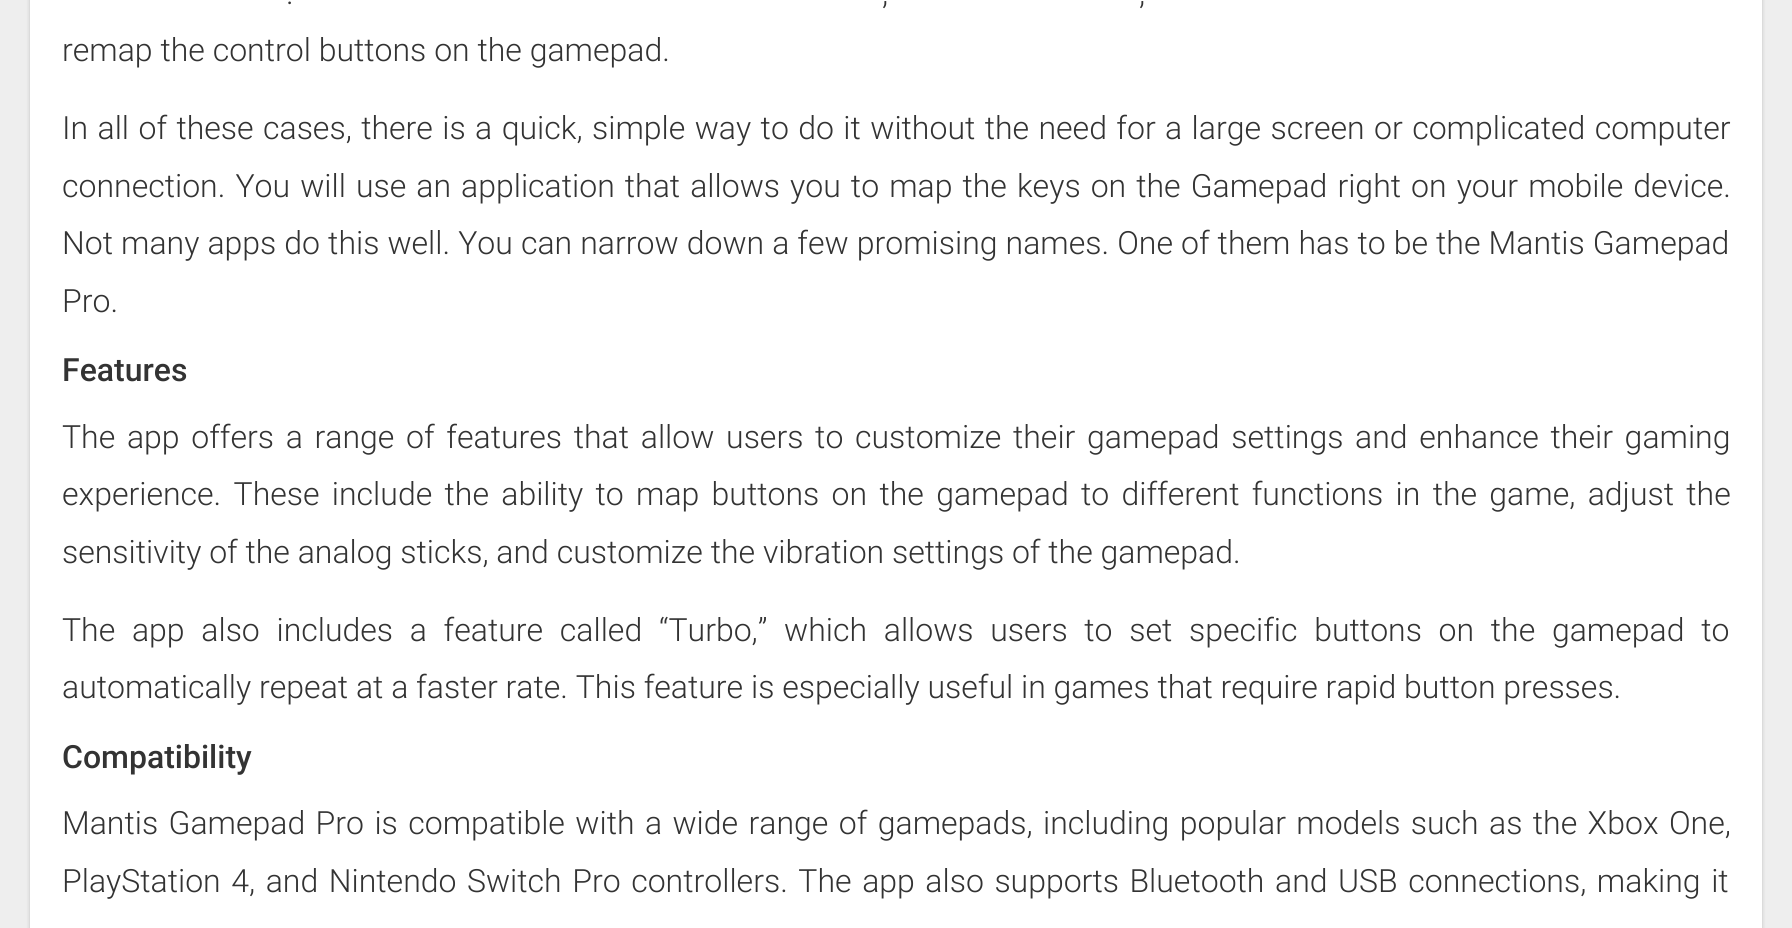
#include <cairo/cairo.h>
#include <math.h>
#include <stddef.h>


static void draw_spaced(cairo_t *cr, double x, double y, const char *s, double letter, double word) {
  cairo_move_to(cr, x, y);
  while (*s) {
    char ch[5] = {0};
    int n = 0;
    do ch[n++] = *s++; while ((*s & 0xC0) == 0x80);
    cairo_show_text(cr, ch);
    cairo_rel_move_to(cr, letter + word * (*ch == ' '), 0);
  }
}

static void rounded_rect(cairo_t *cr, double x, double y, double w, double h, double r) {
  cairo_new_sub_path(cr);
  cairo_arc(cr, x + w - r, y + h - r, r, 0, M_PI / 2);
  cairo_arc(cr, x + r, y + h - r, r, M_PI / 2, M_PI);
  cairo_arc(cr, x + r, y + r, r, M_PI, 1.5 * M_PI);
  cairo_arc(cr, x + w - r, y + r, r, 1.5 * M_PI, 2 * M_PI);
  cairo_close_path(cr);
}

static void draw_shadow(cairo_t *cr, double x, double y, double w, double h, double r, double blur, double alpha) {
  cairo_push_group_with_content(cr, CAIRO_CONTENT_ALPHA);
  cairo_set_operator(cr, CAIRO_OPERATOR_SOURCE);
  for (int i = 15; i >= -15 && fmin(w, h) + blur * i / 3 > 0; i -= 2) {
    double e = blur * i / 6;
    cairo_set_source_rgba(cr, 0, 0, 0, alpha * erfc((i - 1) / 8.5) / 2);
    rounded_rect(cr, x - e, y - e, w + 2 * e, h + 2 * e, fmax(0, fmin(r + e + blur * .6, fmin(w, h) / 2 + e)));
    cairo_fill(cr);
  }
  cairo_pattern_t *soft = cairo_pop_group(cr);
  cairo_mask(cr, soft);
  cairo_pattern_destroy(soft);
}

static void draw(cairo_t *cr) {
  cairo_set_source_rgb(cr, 238 / 255.0, 238 / 255.0, 238 / 255.0);
  cairo_paint(cr);
  cairo_set_source_rgb(cr, 0, 0, 0);
  draw_shadow(cr, 30, -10, 1732, 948, 4, 2, 0.2);
  cairo_set_source_rgb(cr, 1, 1, 1);
  cairo_rectangle(cr, 30, 0, 1732, 928);
  cairo_fill(cr);
  cairo_select_font_face(cr, "Roboto Light", CAIRO_FONT_SLANT_NORMAL, CAIRO_FONT_WEIGHT_NORMAL);
  cairo_set_font_size(cr, 32);
  cairo_set_source_rgb(cr, 51 / 255.0, 51 / 255.0, 51 / 255.0);
  draw_spaced(cr, 286, 4, ".", 0, 1);
  draw_spaced(cr, 882, 4, ",", 0, 1);
  draw_spaced(cr, 1139, 4, ",", 0, 1);
  cairo_move_to(cr, 62, 61);
  cairo_show_text(cr, "remap the control buttons on the gamepad.");
  draw_spaced(cr, 62, 139, "In all of these cases, there is a quick, simple way to do it without the need for a large screen or complicated computer", 0, 1.6);
  draw_spaced(cr, 62, 197, "connection. You will use an application that allows you to map the keys on the Gamepad right on your mobile device.", 0, 2.25);
  draw_spaced(cr, 62, 254, "Not many apps do this well. You can narrow down a few promising names. One of them has to be the Mantis Gamepad", 0, 0.25);
  cairo_move_to(cr, 62, 312);
  cairo_show_text(cr, "Pro.");
  cairo_select_font_face(cr, "Roboto Medium", CAIRO_FONT_SLANT_NORMAL, CAIRO_FONT_WEIGHT_NORMAL);
  cairo_move_to(cr, 62, 381);
  cairo_show_text(cr, "Features");
  cairo_select_font_face(cr, "Roboto Light", CAIRO_FONT_SLANT_NORMAL, CAIRO_FONT_WEIGHT_NORMAL);
  draw_spaced(cr, 62, 448, "The app offers a range of features that allow users to customize their gamepad settings and enhance their gaming", 0, 3.9);
  draw_spaced(cr, 62, 505, "experience. These include the ability to map buttons on the gamepad to different functions in the game, adjust the", 0, 4.5);
  cairo_move_to(cr, 62, 563);
  cairo_show_text(cr, "sensitivity of the analog sticks, and customize the vibration settings of the gamepad.");
  draw_spaced(cr, 62, 641, "The app also includes a feature called “Turbo,” which allows users to set specific buttons on the gamepad to", 0, 8.9);
  cairo_move_to(cr, 62, 698);
  cairo_show_text(cr, "automatically repeat at a faster rate. This feature is especially useful in games that require rapid button presses.");
  cairo_select_font_face(cr, "Roboto Medium", CAIRO_FONT_SLANT_NORMAL, CAIRO_FONT_WEIGHT_NORMAL);
  cairo_move_to(cr, 62, 768);
  cairo_show_text(cr, "Compatibility");
  cairo_select_font_face(cr, "Roboto Light", CAIRO_FONT_SLANT_NORMAL, CAIRO_FONT_WEIGHT_NORMAL);
  draw_spaced(cr, 62, 834, "Mantis Gamepad Pro is compatible with a wide range of gamepads, including popular models such as the Xbox One,", 0, 2.6);
  draw_spaced(cr, 62, 892, "PlayStation 4, and Nintendo Switch Pro controllers. The app also supports Bluetooth and USB connections, making it", 0, 2.75);
}

int main(void) {
  cairo_surface_t *surface = cairo_image_surface_create(CAIRO_FORMAT_RGB24, 1792, 928);
  cairo_t *cr = cairo_create(surface);
  cairo_font_options_t *options = cairo_font_options_create();
  cairo_font_options_set_hint_metrics(options, CAIRO_HINT_METRICS_OFF);
  cairo_font_options_set_hint_style(options, CAIRO_HINT_STYLE_NONE);
  cairo_set_font_options(cr, options);
  cairo_set_miter_limit(cr, 4);
  draw(cr);
  cairo_surface_write_to_png(surface, "out.png");
  cairo_font_options_destroy(options);
  cairo_destroy(cr);
  cairo_surface_destroy(surface);
  return 0;
}
